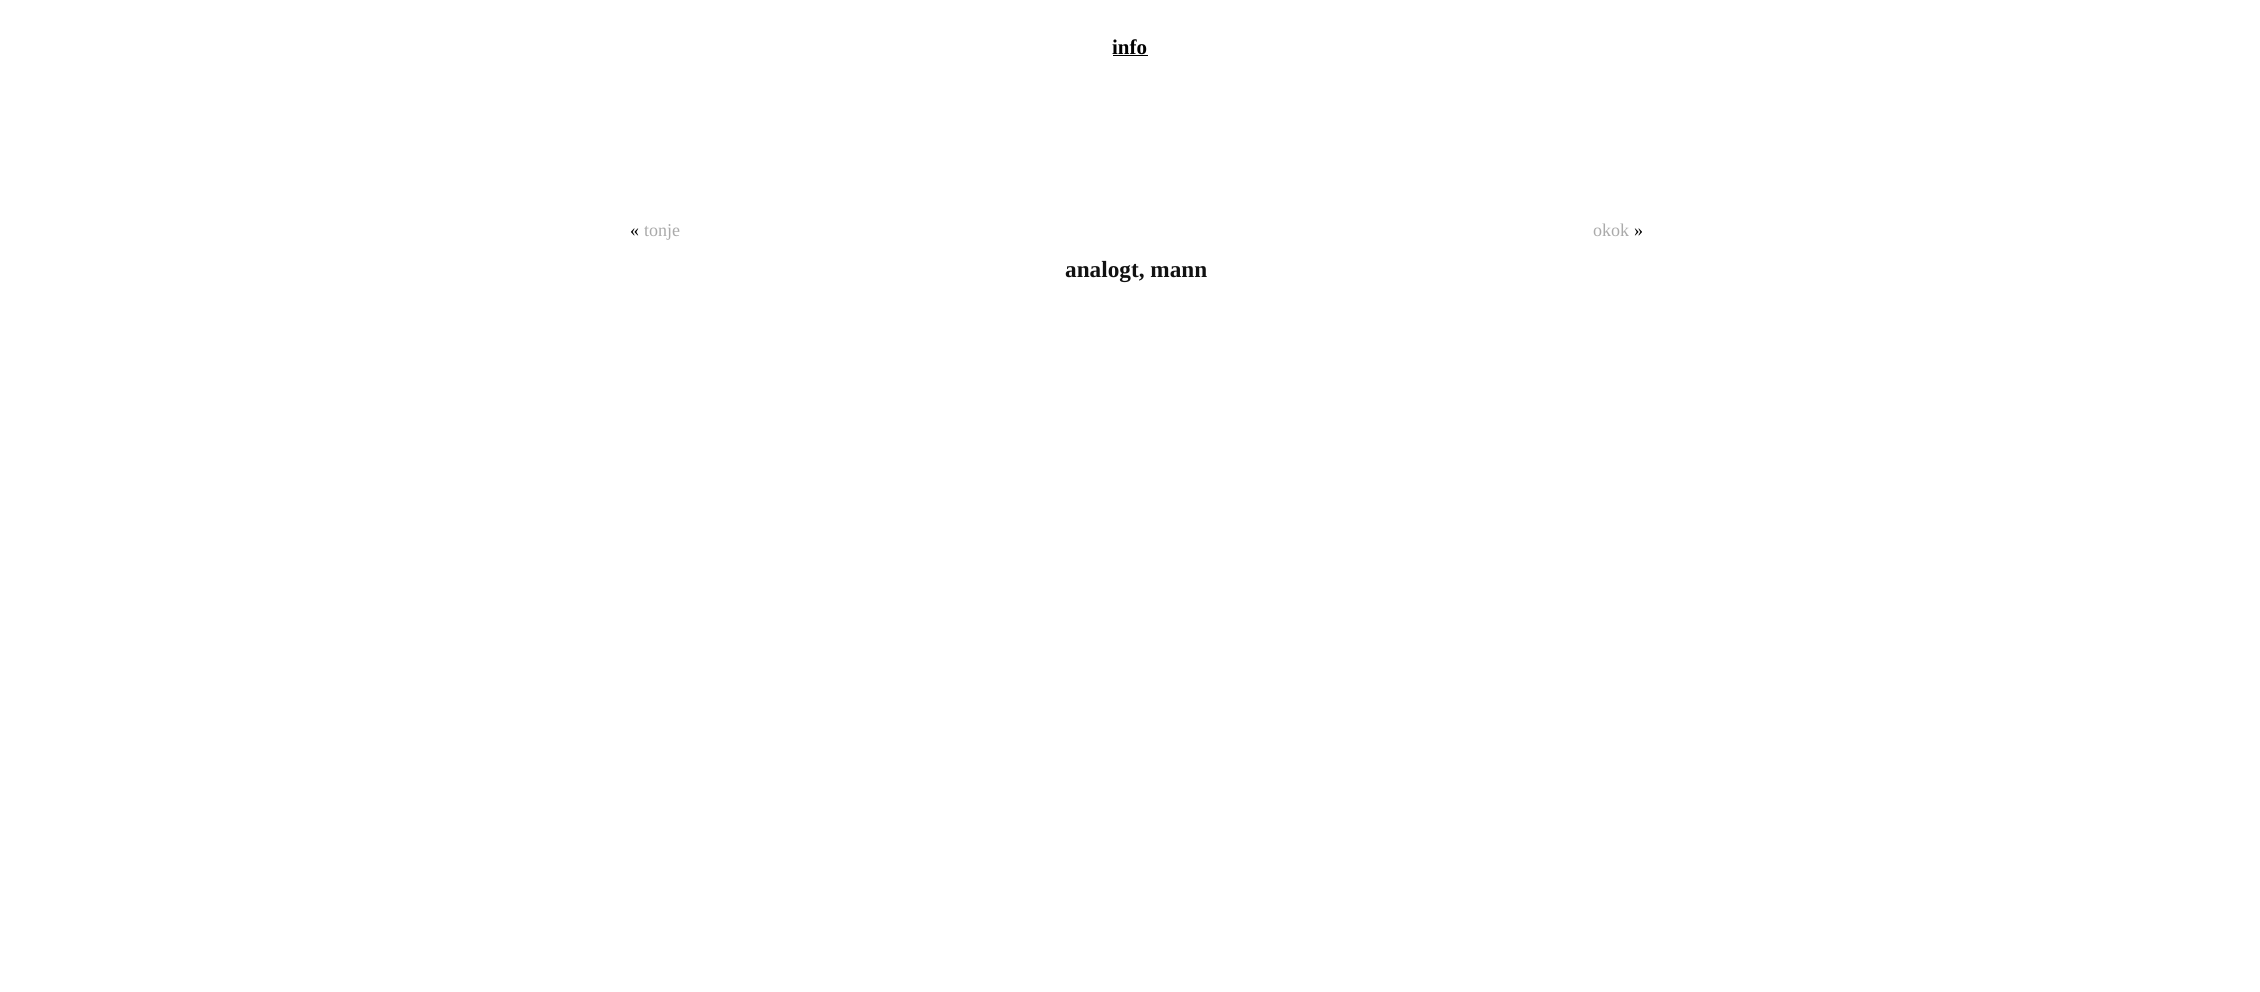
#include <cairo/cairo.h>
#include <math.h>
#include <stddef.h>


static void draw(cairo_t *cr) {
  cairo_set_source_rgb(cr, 1, 1, 1);
  cairo_paint(cr);
  cairo_set_source_rgb(cr, 0, 0, 0);
  cairo_rectangle(cr, 1113, 55, 35, 1);
  cairo_fill(cr);
  cairo_select_font_face(cr, "Liberation Serif", CAIRO_FONT_SLANT_NORMAL, CAIRO_FONT_WEIGHT_BOLD);
  cairo_set_font_size(cr, 21);
  cairo_move_to(cr, 1112, 54);
  cairo_show_text(cr, "info");
  cairo_select_font_face(cr, "Liberation Serif", CAIRO_FONT_SLANT_NORMAL, CAIRO_FONT_WEIGHT_NORMAL);
  cairo_set_font_size(cr, 18);
  cairo_move_to(cr, 630, 236);
  cairo_show_text(cr, "«");
  cairo_set_source_rgb(cr, 170 / 255.0, 170 / 255.0, 170 / 255.0);
  cairo_move_to(cr, 644, 236);
  cairo_show_text(cr, "tonje");
  cairo_move_to(cr, 1593, 236);
  cairo_show_text(cr, "okok");
  cairo_set_source_rgb(cr, 0, 0, 0);
  cairo_move_to(cr, 1634, 236);
  cairo_show_text(cr, "»");
  cairo_select_font_face(cr, "Liberation Serif", CAIRO_FONT_SLANT_NORMAL, CAIRO_FONT_WEIGHT_BOLD);
  cairo_set_font_size(cr, 23.25);
  cairo_set_source_rgb(cr, 17 / 255.0, 17 / 255.0, 17 / 255.0);
  cairo_move_to(cr, 1065, 277);
  cairo_show_text(cr, "analogt, mann");
}

int main(void) {
  cairo_surface_t *surface = cairo_image_surface_create(CAIRO_FORMAT_RGB24, 2260, 992);
  cairo_t *cr = cairo_create(surface);
  cairo_font_options_t *options = cairo_font_options_create();
  cairo_font_options_set_hint_metrics(options, CAIRO_HINT_METRICS_OFF);
  cairo_font_options_set_hint_style(options, CAIRO_HINT_STYLE_NONE);
  cairo_set_font_options(cr, options);
  cairo_set_miter_limit(cr, 4);
  draw(cr);
  cairo_surface_write_to_png(surface, "out.png");
  cairo_font_options_destroy(options);
  cairo_destroy(cr);
  cairo_surface_destroy(surface);
  return 0;
}
